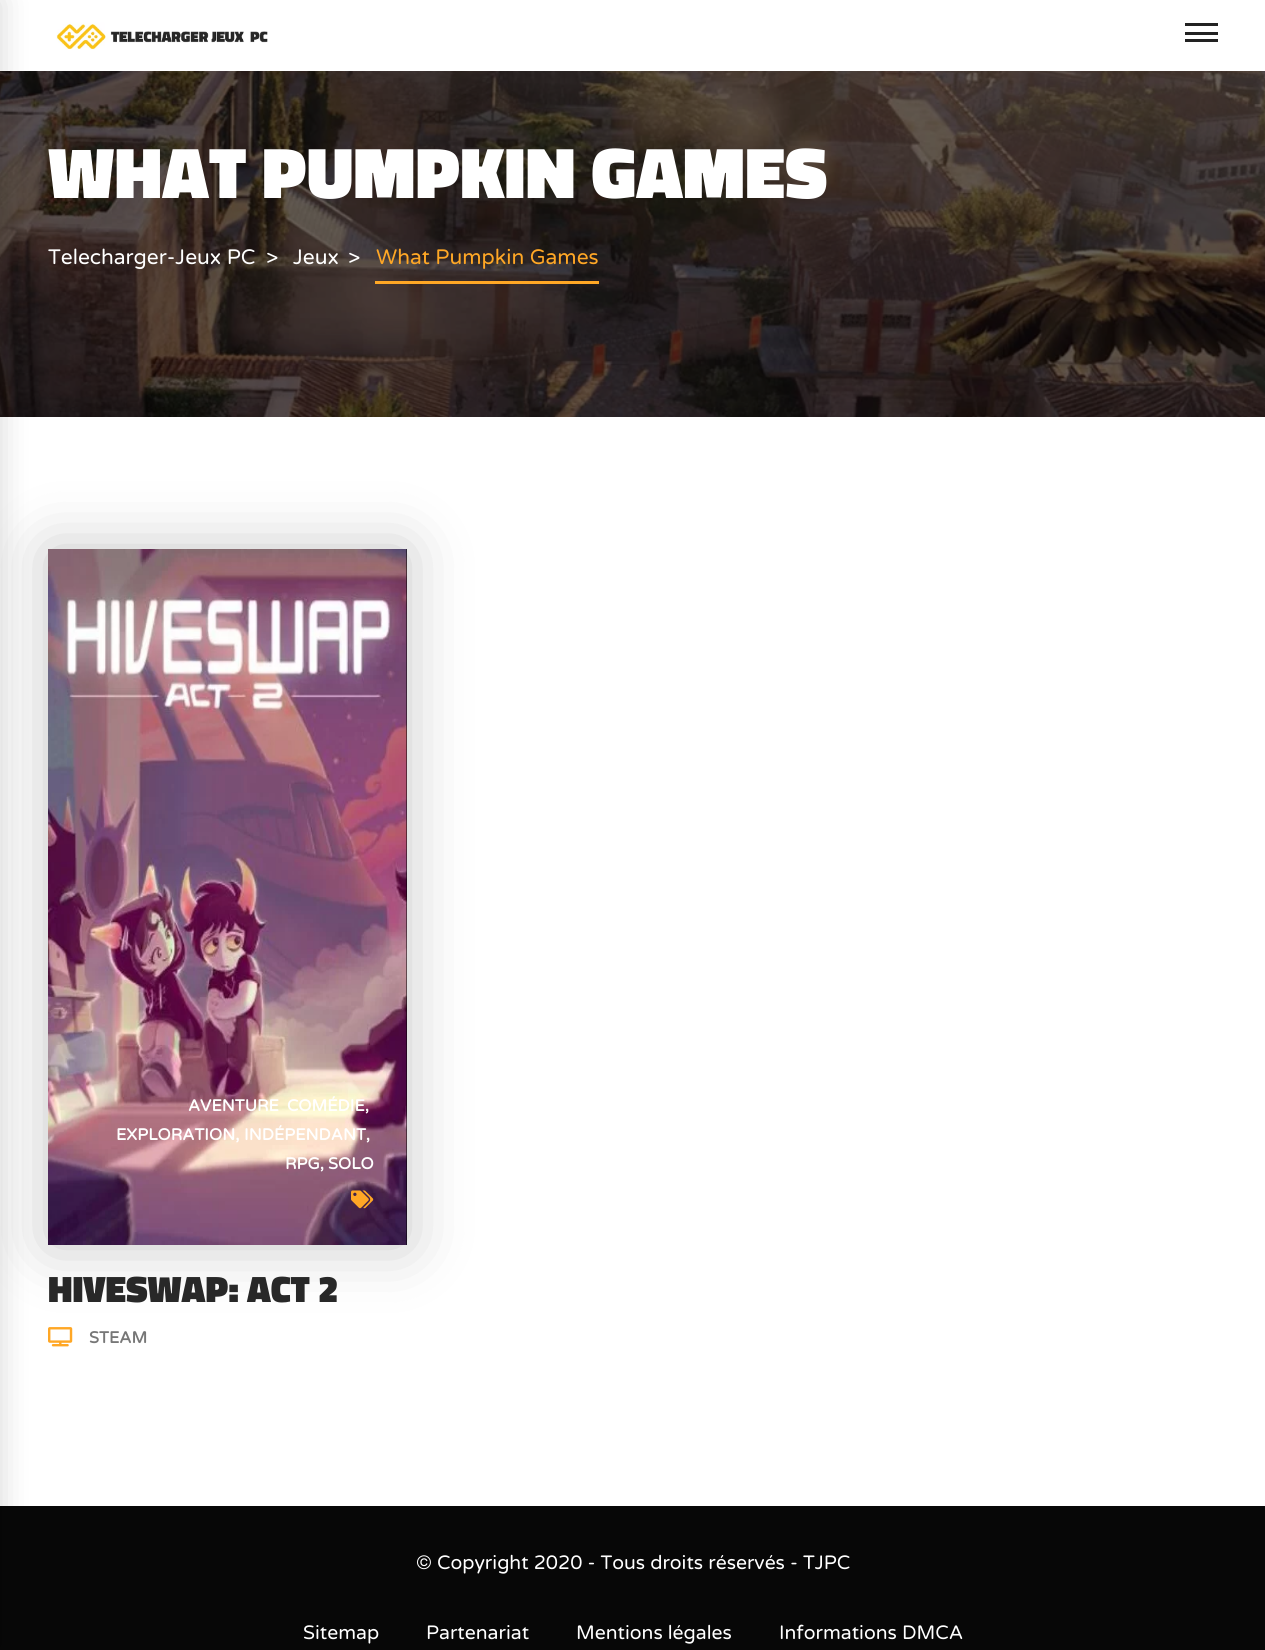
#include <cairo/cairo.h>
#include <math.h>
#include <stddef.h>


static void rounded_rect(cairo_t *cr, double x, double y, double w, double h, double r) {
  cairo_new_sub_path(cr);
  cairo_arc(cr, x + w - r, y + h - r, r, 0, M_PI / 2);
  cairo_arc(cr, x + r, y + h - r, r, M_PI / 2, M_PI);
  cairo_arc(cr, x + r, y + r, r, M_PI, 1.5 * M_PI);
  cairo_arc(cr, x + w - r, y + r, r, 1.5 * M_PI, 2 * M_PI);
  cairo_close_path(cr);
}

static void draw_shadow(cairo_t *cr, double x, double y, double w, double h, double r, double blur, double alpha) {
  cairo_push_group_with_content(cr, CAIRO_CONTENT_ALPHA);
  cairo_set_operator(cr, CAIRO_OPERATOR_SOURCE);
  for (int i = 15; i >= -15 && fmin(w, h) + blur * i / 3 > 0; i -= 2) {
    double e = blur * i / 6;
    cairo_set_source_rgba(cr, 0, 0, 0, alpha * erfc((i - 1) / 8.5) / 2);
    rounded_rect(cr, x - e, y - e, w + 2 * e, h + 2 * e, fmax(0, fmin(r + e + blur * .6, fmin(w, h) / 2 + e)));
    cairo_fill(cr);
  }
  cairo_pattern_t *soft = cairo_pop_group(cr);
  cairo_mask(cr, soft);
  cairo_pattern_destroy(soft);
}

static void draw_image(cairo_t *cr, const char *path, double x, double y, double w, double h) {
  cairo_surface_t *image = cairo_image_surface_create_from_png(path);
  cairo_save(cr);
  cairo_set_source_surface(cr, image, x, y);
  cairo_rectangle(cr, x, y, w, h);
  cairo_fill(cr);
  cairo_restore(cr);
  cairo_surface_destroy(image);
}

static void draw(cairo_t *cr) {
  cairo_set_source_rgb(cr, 1, 1, 1);
  cairo_paint(cr);
  cairo_set_source_rgb(cr, 0, 0, 0);
  cairo_rectangle(cr, 0, 71, 1265, 346);
  cairo_fill(cr);
  draw_image(cr, "images/2.png", 0, 71, 1265, 346);
  draw_image(cr, "images/5.png", 48, 1327, 25, 20);
  cairo_set_source_rgb(cr, 0, 0, 0);
  draw_shadow(cr, 48, 549, 359, 696, 0, 31.5, 0.23);
  cairo_set_source_rgb(cr, 0, 0, 0);
  cairo_rectangle(cr, 406, 549, 1, 696);
  cairo_fill(cr);
  draw_image(cr, "images/3.png", 48, 549, 359, 696);
  cairo_set_source_rgb(cr, 7 / 255.0, 7 / 255.0, 7 / 255.0);
  cairo_rectangle(cr, 0, 1506, 1265, 144);
  cairo_fill(cr);
  cairo_set_source_rgb(cr, 0, 0, 0);
  draw_shadow(cr, -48, 0, 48, 1650, 0, 16, 0.16);
  draw_image(cr, "images/1.png", 56, 22, 212, 28);
  cairo_set_source_rgb(cr, 34 / 255.0, 34 / 255.0, 34 / 255.0);
  cairo_rectangle(cr, 1185, 23, 33, 3);
  cairo_fill(cr);
  cairo_rectangle(cr, 1185, 32, 33, 3);
  cairo_fill(cr);
  cairo_rectangle(cr, 1185, 39, 33, 3);
  cairo_fill(cr);
  cairo_set_source_rgb(cr, 1, 167 / 255.0, 37 / 255.0);
  cairo_rectangle(cr, 375, 281, 224, 3);
  cairo_fill(cr);
  draw_image(cr, "images/4.png", 351, 1190, 23, 19);
  cairo_select_font_face(cr, "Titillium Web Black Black", CAIRO_FONT_SLANT_NORMAL, CAIRO_FONT_WEIGHT_NORMAL);
  cairo_set_font_size(cr, 72.75);
  cairo_set_source_rgb(cr, 1, 1, 1);
  cairo_move_to(cr, 48, 198);
  cairo_show_text(cr, "WHAT PUMPKIN GAMES");
  cairo_select_font_face(cr, "Varela Round", CAIRO_FONT_SLANT_NORMAL, CAIRO_FONT_WEIGHT_NORMAL);
  cairo_set_font_size(cr, 21);
  cairo_move_to(cr, 48, 264);
  cairo_show_text(cr, "Telecharger-Jeux PC");
  cairo_move_to(cr, 266, 264);
  cairo_show_text(cr, ">");
  cairo_move_to(cr, 293, 264);
  cairo_show_text(cr, "Jeux");
  cairo_move_to(cr, 348, 264);
  cairo_show_text(cr, ">");
  cairo_set_source_rgb(cr, 1, 167 / 255.0, 37 / 255.0);
  cairo_move_to(cr, 376, 264);
  cairo_show_text(cr, "What Pumpkin Games");
  cairo_select_font_face(cr, "Varela Round", CAIRO_FONT_SLANT_NORMAL, CAIRO_FONT_WEIGHT_BOLD);
  cairo_set_font_size(cr, 16.25);
  cairo_set_source_rgb(cr, 1, 1, 1);
  cairo_move_to(cr, 188, 1111);
  cairo_show_text(cr, "AVENTURE");
  cairo_move_to(cr, 287, 1111);
  cairo_show_text(cr, "COMÉDIE,");
  cairo_move_to(cr, 116, 1140);
  cairo_show_text(cr, "EXPLORATION,");
  cairo_move_to(cr, 244, 1140);
  cairo_show_text(cr, "INDÉPENDANT,");
  cairo_move_to(cr, 285, 1169);
  cairo_show_text(cr, "RPG,");
  cairo_move_to(cr, 328, 1169);
  cairo_show_text(cr, "SOLO");
  cairo_select_font_face(cr, "Titillium Web Black Black", CAIRO_FONT_SLANT_NORMAL, CAIRO_FONT_WEIGHT_NORMAL);
  cairo_set_font_size(cr, 37.25);
  cairo_set_source_rgb(cr, 40 / 255.0, 40 / 255.0, 40 / 255.0);
  cairo_move_to(cr, 48, 1302);
  cairo_show_text(cr, "HIVESWAP: ACT 2");
  cairo_select_font_face(cr, "Varela Round", CAIRO_FONT_SLANT_NORMAL, CAIRO_FONT_WEIGHT_BOLD);
  cairo_set_font_size(cr, 16.25);
  cairo_set_source_rgb(cr, 119 / 255.0, 119 / 255.0, 119 / 255.0);
  cairo_move_to(cr, 89, 1343);
  cairo_show_text(cr, "STEAM");
  cairo_select_font_face(cr, "Varela Round", CAIRO_FONT_SLANT_NORMAL, CAIRO_FONT_WEIGHT_NORMAL);
  cairo_set_font_size(cr, 19.4);
  cairo_set_source_rgb(cr, 1, 1, 1);
  cairo_move_to(cr, 416, 1569);
  cairo_show_text(cr, "© Copyright 2020 - Tous droits réservés - TJPC");
  cairo_move_to(cr, 303, 1639);
  cairo_show_text(cr, "Sitemap");
  cairo_move_to(cr, 426, 1639);
  cairo_show_text(cr, "Partenariat");
  cairo_move_to(cr, 576, 1639);
  cairo_show_text(cr, "Mentions légales");
  cairo_move_to(cr, 779, 1639);
  cairo_show_text(cr, "Informations DMCA");
}

int main(void) {
  cairo_surface_t *surface = cairo_image_surface_create(CAIRO_FORMAT_RGB24, 1265, 1650);
  cairo_t *cr = cairo_create(surface);
  cairo_font_options_t *options = cairo_font_options_create();
  cairo_font_options_set_hint_metrics(options, CAIRO_HINT_METRICS_OFF);
  cairo_font_options_set_hint_style(options, CAIRO_HINT_STYLE_NONE);
  cairo_set_font_options(cr, options);
  cairo_set_miter_limit(cr, 4);
  draw(cr);
  cairo_surface_write_to_png(surface, "out.png");
  cairo_font_options_destroy(options);
  cairo_destroy(cr);
  cairo_surface_destroy(surface);
  return 0;
}
